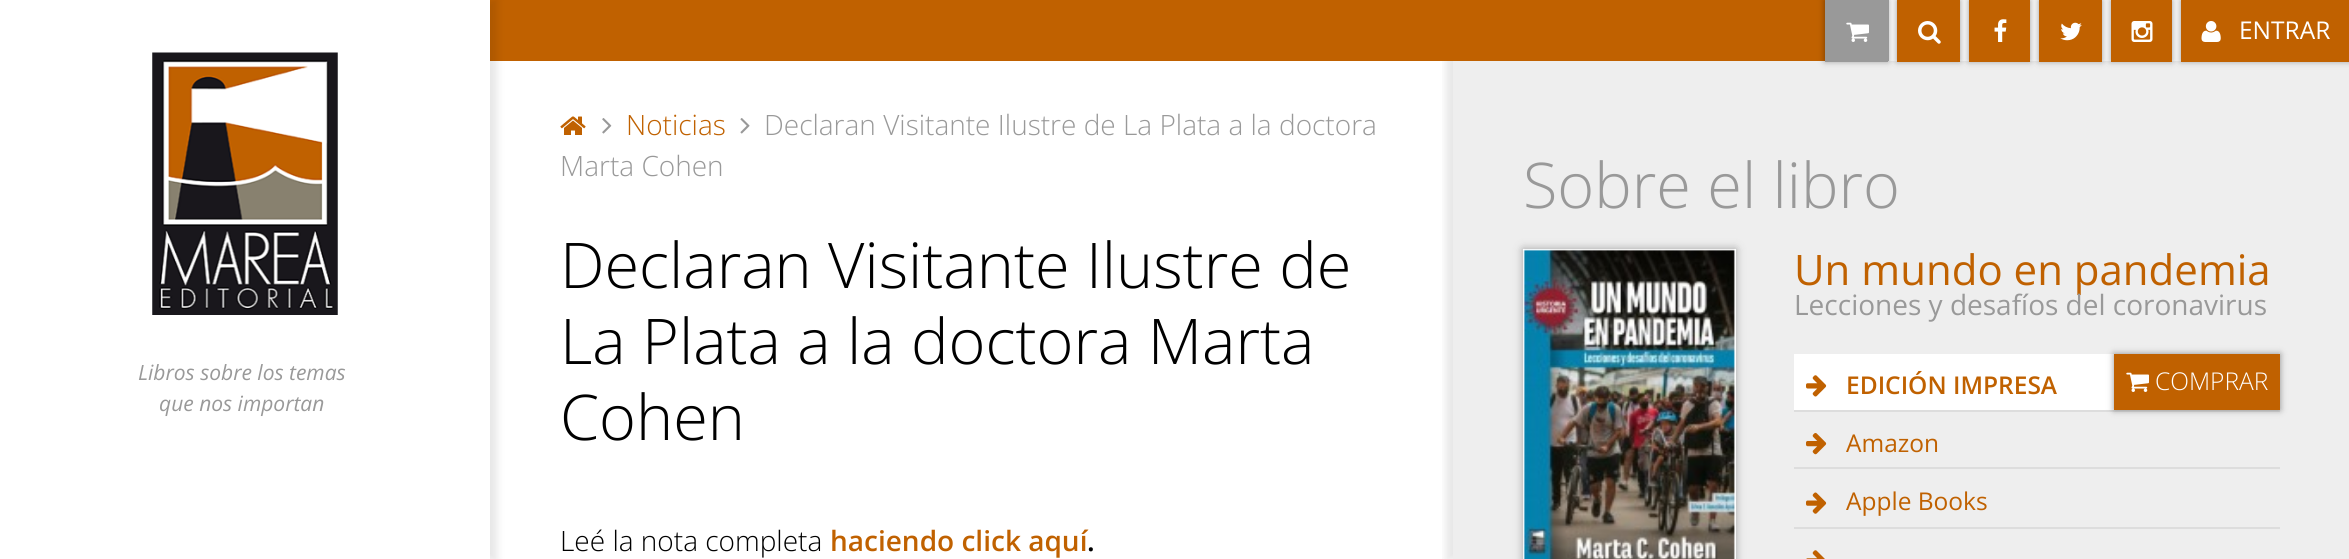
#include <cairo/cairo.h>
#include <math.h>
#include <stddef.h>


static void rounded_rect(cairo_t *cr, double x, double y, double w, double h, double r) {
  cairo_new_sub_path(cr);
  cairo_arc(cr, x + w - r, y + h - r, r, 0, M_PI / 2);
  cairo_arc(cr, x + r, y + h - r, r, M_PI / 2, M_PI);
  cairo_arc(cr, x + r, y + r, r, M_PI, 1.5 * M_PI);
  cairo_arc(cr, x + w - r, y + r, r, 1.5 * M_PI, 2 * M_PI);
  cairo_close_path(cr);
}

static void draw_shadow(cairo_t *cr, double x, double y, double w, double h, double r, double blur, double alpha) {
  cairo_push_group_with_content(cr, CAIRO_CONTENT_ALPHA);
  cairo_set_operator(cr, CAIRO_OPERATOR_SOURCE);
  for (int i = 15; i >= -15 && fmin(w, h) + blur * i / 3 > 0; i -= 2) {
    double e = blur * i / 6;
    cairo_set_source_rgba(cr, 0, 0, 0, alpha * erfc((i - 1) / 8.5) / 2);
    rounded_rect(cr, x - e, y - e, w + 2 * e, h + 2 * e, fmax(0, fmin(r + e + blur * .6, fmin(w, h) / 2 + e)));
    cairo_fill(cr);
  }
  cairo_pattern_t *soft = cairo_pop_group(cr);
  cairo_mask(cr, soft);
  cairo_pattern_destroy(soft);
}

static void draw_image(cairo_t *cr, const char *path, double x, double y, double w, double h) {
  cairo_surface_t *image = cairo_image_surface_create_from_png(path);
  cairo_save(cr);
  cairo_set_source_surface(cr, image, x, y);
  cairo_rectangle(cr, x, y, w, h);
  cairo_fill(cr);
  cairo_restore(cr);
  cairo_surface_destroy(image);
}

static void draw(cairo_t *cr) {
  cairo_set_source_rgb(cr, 238 / 255.0, 238 / 255.0, 238 / 255.0);
  cairo_paint(cr);
  cairo_set_source_rgb(cr, 1, 1, 1);
  cairo_rectangle(cr, 490, 61, 963, 498);
  cairo_fill(cr);
  cairo_save(cr);
  cairo_rectangle(cr, 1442, 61, 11, 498);
  cairo_clip(cr);
  cairo_set_source_rgb(cr, 0, 0, 0);
  draw_shadow(cr, 1446, 0, 897, 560, 0, 4.5, 0.1);
  cairo_restore(cr);
  cairo_set_source_rgb(cr, 192 / 255.0, 97 / 255.0, 0);
  cairo_rectangle(cr, 490, 0, 1859, 61);
  cairo_fill(cr);
  cairo_set_source_rgb(cr, 1, 1, 1);
  cairo_rectangle(cr, 1889, 0, 8, 61);
  cairo_fill(cr);
  cairo_set_source_rgb(cr, 0, 0, 0);
  draw_shadow(cr, 1825, 0, 63, 61, 0, 3.5, 0.4);
  cairo_set_source_rgb(cr, 153 / 255.0, 153 / 255.0, 153 / 255.0);
  cairo_rectangle(cr, 1825, 0, 62, 60);
  cairo_fill(cr);
  cairo_rectangle(cr, 1887, 0, 2, 61);
  cairo_fill(cr);
  cairo_rectangle(cr, 1825, 60, 63, 2);
  cairo_fill(cr);
  draw_image(cr, "images/1.png", 1846, 22, 23, 20);
  cairo_set_source_rgb(cr, 1, 1, 1);
  cairo_rectangle(cr, 1960, 0, 9, 61);
  cairo_fill(cr);
  cairo_save(cr);
  cairo_set_fill_rule(cr, CAIRO_FILL_RULE_EVEN_ODD);
  cairo_new_path(cr);
  cairo_move_to(cr, 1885, 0);
  cairo_line_to(cr, 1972, 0);
  cairo_line_to(cr, 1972, 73);
  cairo_line_to(cr, 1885, 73);
  cairo_close_path(cr);
  cairo_move_to(cr, 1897, 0);
  cairo_line_to(cr, 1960, 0);
  cairo_line_to(cr, 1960, 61);
  cairo_line_to(cr, 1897, 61);
  cairo_close_path(cr);
  cairo_clip(cr);
  cairo_set_source_rgb(cr, 0, 0, 0);
  draw_shadow(cr, 1897, 0, 63, 61, 0, 3.5, 0.4);
  cairo_restore(cr);
  cairo_set_source_rgb(cr, 192 / 255.0, 97 / 255.0, 0);
  cairo_rectangle(cr, 1897, 61, 63, 1);
  cairo_fill(cr);
  draw_image(cr, "images/2.png", 1918, 21, 23, 23);
  cairo_set_source_rgb(cr, 1, 1, 1);
  cairo_rectangle(cr, 2030, 0, 9, 61);
  cairo_fill(cr);
  cairo_save(cr);
  cairo_set_fill_rule(cr, CAIRO_FILL_RULE_EVEN_ODD);
  cairo_new_path(cr);
  cairo_move_to(cr, 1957, 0);
  cairo_line_to(cr, 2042, 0);
  cairo_line_to(cr, 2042, 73);
  cairo_line_to(cr, 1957, 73);
  cairo_close_path(cr);
  cairo_move_to(cr, 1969, 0);
  cairo_line_to(cr, 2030, 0);
  cairo_line_to(cr, 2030, 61);
  cairo_line_to(cr, 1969, 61);
  cairo_close_path(cr);
  cairo_clip(cr);
  cairo_set_source_rgb(cr, 0, 0, 0);
  draw_shadow(cr, 1969, 0, 61, 61, 0, 3.5, 0.4);
  cairo_restore(cr);
  cairo_set_source_rgb(cr, 192 / 255.0, 97 / 255.0, 0);
  cairo_rectangle(cr, 1969, 61, 61, 1);
  cairo_fill(cr);
  draw_image(cr, "images/3.png", 1994, 19, 13, 23);
  cairo_set_source_rgb(cr, 1, 1, 1);
  cairo_rectangle(cr, 2102, 0, 9, 61);
  cairo_fill(cr);
  cairo_set_source_rgb(cr, 0, 0, 0);
  draw_shadow(cr, 2039, 0, 63, 61, 0, 3.5, 0.4);
  cairo_set_source_rgb(cr, 192 / 255.0, 97 / 255.0, 0);
  cairo_rectangle(cr, 2039, 0, 63, 62);
  cairo_fill(cr);
  draw_image(cr, "images/4.png", 2060, 22, 22, 19);
  cairo_set_source_rgb(cr, 1, 1, 1);
  cairo_rectangle(cr, 2172, 0, 9, 61);
  cairo_fill(cr);
  cairo_set_source_rgb(cr, 0, 0, 0);
  draw_shadow(cr, 2111, 0, 61, 61, 0, 3.5, 0.4);
  cairo_set_source_rgb(cr, 192 / 255.0, 97 / 255.0, 0);
  cairo_rectangle(cr, 2111, 0, 61, 62);
  cairo_fill(cr);
  draw_image(cr, "images/5.png", 2131, 21, 22, 21);
  cairo_save(cr);
  cairo_set_fill_rule(cr, CAIRO_FILL_RULE_EVEN_ODD);
  cairo_new_path(cr);
  cairo_move_to(cr, 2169, 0);
  cairo_line_to(cr, 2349, 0);
  cairo_line_to(cr, 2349, 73);
  cairo_line_to(cr, 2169, 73);
  cairo_close_path(cr);
  cairo_move_to(cr, 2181, 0);
  cairo_line_to(cr, 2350, 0);
  cairo_line_to(cr, 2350, 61);
  cairo_line_to(cr, 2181, 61);
  cairo_close_path(cr);
  cairo_clip(cr);
  cairo_set_source_rgb(cr, 0, 0, 0);
  draw_shadow(cr, 2181, 0, 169, 61, 0, 3.5, 0.4);
  cairo_restore(cr);
  cairo_rectangle(cr, 2181, 61, 168, 1);
  cairo_fill(cr);
  draw_image(cr, "images/6.png", 2201, 21, 20, 21);
  cairo_set_source_rgb(cr, 0, 0, 0);
  draw_shadow(cr, 7, 0, 490, 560, 0, 4.5, 0.1);
  cairo_set_source_rgb(cr, 1, 1, 1);
  cairo_rectangle(cr, 0, 0, 490, 559);
  cairo_fill(cr);
  draw_image(cr, "images/7.png", 152, 52, 186, 263);
  draw_image(cr, "images/8.png", 560, 116, 26, 19);
  draw_image(cr, "images/9.png", 602, 118, 10, 16);
  draw_image(cr, "images/10.png", 740, 118, 10, 16);
  cairo_set_source_rgb(cr, 50 / 255.0, 50 / 255.0, 50 / 255.0);
  draw_shadow(cr, 1523, 249, 213, 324, 0, 4.5, 0.4);
  cairo_rectangle(cr, 1524, 250, 211, 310);
  cairo_set_source_rgb(cr, 1, 1, 1);
  cairo_stroke(cr);
  draw_image(cr, "images/11.png", 1523, 249, 212, 310);
  cairo_rectangle(cr, 1794, 354, 320, 56);
  cairo_fill(cr);
  cairo_set_source_rgb(cr, 221 / 255.0, 221 / 255.0, 221 / 255.0);
  cairo_rectangle(cr, 1794, 410, 486, 2);
  cairo_fill(cr);
  draw_image(cr, "images/12.png", 1806, 375, 21, 22);
  cairo_set_source_rgb(cr, 0, 0, 0);
  draw_shadow(cr, 2114, 354, 166, 56, 0, 3.5, 0.4);
  cairo_set_source_rgb(cr, 192 / 255.0, 97 / 255.0, 0);
  cairo_rectangle(cr, 2114, 354, 166, 56);
  cairo_fill(cr);
  draw_image(cr, "images/13.png", 2126, 372, 23, 20);
  cairo_set_source_rgb(cr, 221 / 255.0, 221 / 255.0, 221 / 255.0);
  cairo_rectangle(cr, 1794, 467, 486, 2);
  cairo_fill(cr);
  draw_image(cr, "images/14.png", 1806, 433, 21, 22);
  cairo_rectangle(cr, 1794, 527, 486, 2);
  cairo_fill(cr);
  draw_image(cr, "images/15.png", 1806, 492, 21, 22);
  draw_image(cr, "images/16.png", 1806, 550, 19, 9);
  cairo_select_font_face(cr, "Open Sans", CAIRO_FONT_SLANT_NORMAL, CAIRO_FONT_WEIGHT_NORMAL);
  cairo_set_font_size(cr, 24.5);
  cairo_set_source_rgb(cr, 1, 1, 1);
  cairo_move_to(cr, 2239, 39);
  cairo_show_text(cr, "ENTRAR");
  cairo_select_font_face(cr, "Open Sans", CAIRO_FONT_SLANT_ITALIC, CAIRO_FONT_WEIGHT_NORMAL);
  cairo_set_font_size(cr, 21);
  cairo_set_source_rgb(cr, 153 / 255.0, 153 / 255.0, 153 / 255.0);
  cairo_move_to(cr, 138, 380);
  cairo_show_text(cr, "Libros sobre los temas");
  cairo_move_to(cr, 159, 411);
  cairo_show_text(cr, "que nos importan");
  cairo_select_font_face(cr, "Open Sans Light", CAIRO_FONT_SLANT_NORMAL, CAIRO_FONT_WEIGHT_NORMAL);
  cairo_set_font_size(cr, 28);
  cairo_set_source_rgb(cr, 192 / 255.0, 97 / 255.0, 0);
  cairo_move_to(cr, 626, 135);
  cairo_show_text(cr, "Noticias");
  cairo_set_source_rgb(cr, 153 / 255.0, 153 / 255.0, 153 / 255.0);
  cairo_move_to(cr, 764, 135);
  cairo_show_text(cr, "Declaran Visitante Ilustre de La Plata a la doctora");
  cairo_move_to(cr, 560, 176);
  cairo_show_text(cr, "Marta Cohen");
  cairo_set_font_size(cr, 63);
  cairo_set_source_rgb(cr, 0, 0, 0);
  cairo_move_to(cr, 560, 288);
  cairo_show_text(cr, "Declaran Visitante Ilustre de");
  cairo_move_to(cr, 560, 364);
  cairo_show_text(cr, "La Plata a la doctora Marta");
  cairo_move_to(cr, 560, 440);
  cairo_show_text(cr, "Cohen");
  cairo_set_font_size(cr, 28);
  cairo_move_to(cr, 560, 551);
  cairo_show_text(cr, "Leé la nota completa");
  cairo_select_font_face(cr, "Open Sans SemiBold", CAIRO_FONT_SLANT_NORMAL, CAIRO_FONT_WEIGHT_NORMAL);
  cairo_set_source_rgb(cr, 192 / 255.0, 97 / 255.0, 0);
  cairo_move_to(cr, 830, 551);
  cairo_show_text(cr, "haciendo click aquí");
  cairo_set_source_rgb(cr, 0, 0, 0);
  cairo_move_to(cr, 1087, 551);
  cairo_show_text(cr, ".");
  cairo_select_font_face(cr, "Open Sans Light", CAIRO_FONT_SLANT_NORMAL, CAIRO_FONT_WEIGHT_NORMAL);
  cairo_set_font_size(cr, 63);
  cairo_set_source_rgb(cr, 153 / 255.0, 153 / 255.0, 153 / 255.0);
  cairo_move_to(cr, 1523, 208);
  cairo_show_text(cr, "Sobre el libro");
  cairo_select_font_face(cr, "Open Sans", CAIRO_FONT_SLANT_NORMAL, CAIRO_FONT_WEIGHT_NORMAL);
  cairo_set_font_size(cr, 42);
  cairo_set_source_rgb(cr, 192 / 255.0, 97 / 255.0, 0);
  cairo_move_to(cr, 1794, 285);
  cairo_show_text(cr, "Un mundo en pandemia");
  cairo_set_font_size(cr, 28);
  cairo_set_source_rgb(cr, 153 / 255.0, 153 / 255.0, 153 / 255.0);
  cairo_move_to(cr, 1794, 315);
  cairo_show_text(cr, "Lecciones y desafíos del coronavirus");
  cairo_select_font_face(cr, "Open Sans SemiBold", CAIRO_FONT_SLANT_NORMAL, CAIRO_FONT_WEIGHT_NORMAL);
  cairo_set_font_size(cr, 24.5);
  cairo_set_source_rgb(cr, 192 / 255.0, 97 / 255.0, 0);
  cairo_move_to(cr, 1846, 394);
  cairo_show_text(cr, "EDICIÓN IMPRESA");
  cairo_select_font_face(cr, "Open Sans Light", CAIRO_FONT_SLANT_NORMAL, CAIRO_FONT_WEIGHT_NORMAL);
  cairo_set_source_rgb(cr, 1, 1, 1);
  cairo_move_to(cr, 2155, 390);
  cairo_show_text(cr, "COMPRAR");
  cairo_select_font_face(cr, "Open Sans", CAIRO_FONT_SLANT_NORMAL, CAIRO_FONT_WEIGHT_NORMAL);
  cairo_set_source_rgb(cr, 192 / 255.0, 97 / 255.0, 0);
  cairo_move_to(cr, 1846, 452);
  cairo_show_text(cr, "Amazon");
  cairo_move_to(cr, 1846, 510);
  cairo_show_text(cr, "Apple Books");
}

int main(void) {
  cairo_surface_t *surface = cairo_image_surface_create(CAIRO_FORMAT_RGB24, 2349, 559);
  cairo_t *cr = cairo_create(surface);
  cairo_font_options_t *options = cairo_font_options_create();
  cairo_font_options_set_hint_metrics(options, CAIRO_HINT_METRICS_OFF);
  cairo_font_options_set_hint_style(options, CAIRO_HINT_STYLE_NONE);
  cairo_set_font_options(cr, options);
  cairo_set_miter_limit(cr, 4);
  draw(cr);
  cairo_surface_write_to_png(surface, "out.png");
  cairo_font_options_destroy(options);
  cairo_destroy(cr);
  cairo_surface_destroy(surface);
  return 0;
}
